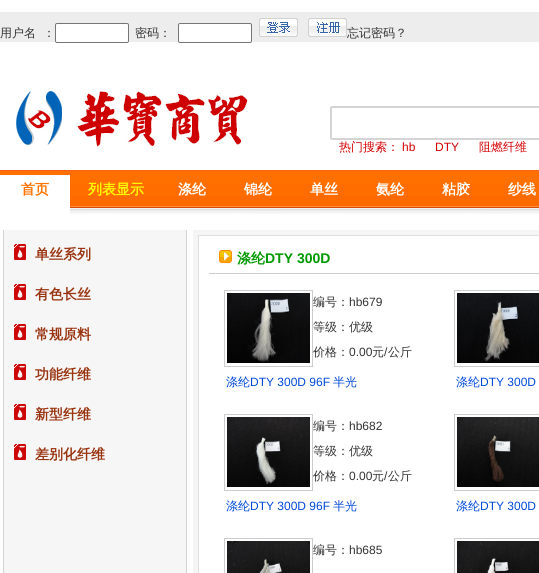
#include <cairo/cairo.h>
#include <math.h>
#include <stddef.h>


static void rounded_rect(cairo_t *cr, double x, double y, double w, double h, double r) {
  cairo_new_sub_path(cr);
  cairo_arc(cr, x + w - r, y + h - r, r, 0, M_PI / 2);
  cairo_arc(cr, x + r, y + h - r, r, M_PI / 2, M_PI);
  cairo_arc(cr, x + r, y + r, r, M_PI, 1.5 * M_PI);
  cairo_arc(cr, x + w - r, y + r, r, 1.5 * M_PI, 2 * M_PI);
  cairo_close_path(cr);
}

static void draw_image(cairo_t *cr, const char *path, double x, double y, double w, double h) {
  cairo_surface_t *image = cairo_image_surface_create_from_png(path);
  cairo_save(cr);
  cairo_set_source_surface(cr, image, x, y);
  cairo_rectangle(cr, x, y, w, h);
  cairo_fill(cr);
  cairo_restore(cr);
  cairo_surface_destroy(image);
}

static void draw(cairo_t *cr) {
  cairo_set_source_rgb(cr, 1, 1, 1);
  cairo_paint(cr);
  cairo_set_source_rgb(cr, 237 / 255.0, 237 / 255.0, 237 / 255.0);
  cairo_rectangle(cr, 0, 12, 539, 30);
  cairo_fill(cr);
  cairo_set_source_rgb(cr, 1, 1, 1);
  rounded_rect(cr, 55.5, 23.5, 73, 19, 1.5);
  cairo_fill_preserve(cr);
  cairo_set_source_rgb(cr, 118 / 255.0, 118 / 255.0, 118 / 255.0);
  cairo_set_line_width(cr, 1);
  cairo_stroke(cr);
  cairo_set_source_rgb(cr, 1, 1, 1);
  rounded_rect(cr, 178.5, 23.5, 73, 19, 1.5);
  cairo_fill_preserve(cr);
  cairo_set_source_rgb(cr, 118 / 255.0, 118 / 255.0, 118 / 255.0);
  cairo_stroke(cr);
  draw_image(cr, "images/1.png", 259, 18, 39, 19);
  draw_image(cr, "images/2.png", 308, 18, 39, 19);
  draw_image(cr, "images/3.png", 16, 91, 232, 56);
  rounded_rect(cr, 331, 107, 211, 32, 1);
  cairo_set_source_rgb(cr, 213 / 255.0, 211 / 255.0, 211 / 255.0);
  cairo_set_line_width(cr, 2);
  cairo_stroke(cr);
  draw_image(cr, "images/4.png", 0, 170, 539, 44);
  cairo_set_source_rgb(cr, 1, 1, 1);
  cairo_rectangle(cr, 0, 175, 70, 39);
  cairo_fill(cr);
  draw_image(cr, "images/5.png", 3, 227, 190, 346);
  cairo_rectangle(cr, 3, 227, 184, 3);
  cairo_fill(cr);
  draw_image(cr, "images/6.png", 12, 242, 16, 20);
  draw_image(cr, "images/6.png", 12, 282, 16, 20);
  draw_image(cr, "images/6.png", 12, 322, 16, 20);
  draw_image(cr, "images/6.png", 12, 362, 16, 20);
  draw_image(cr, "images/6.png", 12, 402, 16, 20);
  draw_image(cr, "images/6.png", 12, 442, 16, 20);
  draw_image(cr, "images/7.png", 193, 227, 346, 16);
  draw_image(cr, "images/8.png", 193, 243, 7, 330);
  draw_image(cr, "images/9.png", 218, 247, 14, 16);
  cairo_set_source_rgb(cr, 204 / 255.0, 204 / 255.0, 204 / 255.0);
  cairo_rectangle(cr, 209, 273, 330, 1);
  cairo_fill(cr);
  cairo_rectangle(cr, 224.5, 290.5, 88, 76);
  cairo_set_line_width(cr, 1);
  cairo_stroke(cr);
  draw_image(cr, "images/10.png", 227, 293, 83, 70);
  cairo_rectangle(cr, 454.5, 290.5, 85, 76);
  cairo_stroke(cr);
  draw_image(cr, "images/11.png", 457, 293, 82, 70);
  cairo_rectangle(cr, 224.5, 414.5, 88, 76);
  cairo_stroke(cr);
  draw_image(cr, "images/12.png", 227, 417, 83, 70);
  cairo_rectangle(cr, 454.5, 414.5, 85, 76);
  cairo_stroke(cr);
  draw_image(cr, "images/13.png", 457, 417, 82, 70);
  cairo_rectangle(cr, 224.5, 538.5, 88, 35);
  cairo_stroke(cr);
  draw_image(cr, "images/14.png", 227, 541, 83, 32);
  cairo_rectangle(cr, 454.5, 538.5, 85, 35);
  cairo_stroke(cr);
  draw_image(cr, "images/15.png", 457, 541, 82, 32);
  cairo_select_font_face(cr, "WenQuanYi Zen Hei Medium", CAIRO_FONT_SLANT_NORMAL, CAIRO_FONT_WEIGHT_NORMAL);
  cairo_set_font_size(cr, 12);
  cairo_set_source_rgb(cr, 51 / 255.0, 51 / 255.0, 51 / 255.0);
  cairo_move_to(cr, 0, 37);
  cairo_show_text(cr, "用户名");
  cairo_move_to(cr, 43, 37);
  cairo_show_text(cr, "：");
  cairo_move_to(cr, 135, 37);
  cairo_show_text(cr, "密码：");
  cairo_move_to(cr, 347, 37);
  cairo_show_text(cr, "忘记密码？");
  cairo_set_source_rgb(cr, 213 / 255.0, 0, 2 / 255.0);
  cairo_move_to(cr, 339, 151);
  cairo_show_text(cr, "热门搜索：");
  cairo_select_font_face(cr, "Liberation Sans", CAIRO_FONT_SLANT_NORMAL, CAIRO_FONT_WEIGHT_NORMAL);
  cairo_move_to(cr, 402, 151);
  cairo_show_text(cr, "hb");
  cairo_move_to(cr, 435, 151);
  cairo_show_text(cr, "DTY");
  cairo_select_font_face(cr, "WenQuanYi Zen Hei Medium", CAIRO_FONT_SLANT_NORMAL, CAIRO_FONT_WEIGHT_NORMAL);
  cairo_move_to(cr, 479, 151);
  cairo_show_text(cr, "阻燃纤维");
  cairo_select_font_face(cr, "WenQuanYi Zen Hei", CAIRO_FONT_SLANT_NORMAL, CAIRO_FONT_WEIGHT_BOLD);
  cairo_set_font_size(cr, 14);
  cairo_set_source_rgb(cr, 1, 115 / 255.0, 0);
  cairo_move_to(cr, 21, 194);
  cairo_show_text(cr, "首页");
  cairo_set_source_rgb(cr, 1, 252 / 255.0, 0);
  cairo_move_to(cr, 88, 194);
  cairo_show_text(cr, "列表显示");
  cairo_set_source_rgb(cr, 1, 1, 1);
  cairo_move_to(cr, 178, 194);
  cairo_show_text(cr, "涤纶");
  cairo_move_to(cr, 244, 194);
  cairo_show_text(cr, "锦纶");
  cairo_move_to(cr, 310, 194);
  cairo_show_text(cr, "单丝");
  cairo_move_to(cr, 376, 194);
  cairo_show_text(cr, "氨纶");
  cairo_move_to(cr, 442, 194);
  cairo_show_text(cr, "粘胶");
  cairo_move_to(cr, 508, 194);
  cairo_show_text(cr, "纱线");
  cairo_set_source_rgb(cr, 153 / 255.0, 52 / 255.0, 16 / 255.0);
  cairo_move_to(cr, 35, 259);
  cairo_show_text(cr, "单丝系列");
  cairo_move_to(cr, 35, 299);
  cairo_show_text(cr, "有色长丝");
  cairo_move_to(cr, 35, 339);
  cairo_show_text(cr, "常规原料");
  cairo_move_to(cr, 35, 379);
  cairo_show_text(cr, "功能纤维");
  cairo_move_to(cr, 35, 419);
  cairo_show_text(cr, "新型纤维");
  cairo_move_to(cr, 35, 459);
  cairo_show_text(cr, "差别化纤维");
  cairo_set_source_rgb(cr, 0, 153 / 255.0, 0);
  cairo_move_to(cr, 237, 263);
  cairo_show_text(cr, "涤纶");
  cairo_select_font_face(cr, "Liberation Sans", CAIRO_FONT_SLANT_NORMAL, CAIRO_FONT_WEIGHT_BOLD);
  cairo_move_to(cr, 265, 263);
  cairo_show_text(cr, "DTY 300D");
  cairo_select_font_face(cr, "WenQuanYi Zen Hei Medium", CAIRO_FONT_SLANT_NORMAL, CAIRO_FONT_WEIGHT_NORMAL);
  cairo_set_font_size(cr, 12);
  cairo_set_source_rgb(cr, 51 / 255.0, 51 / 255.0, 51 / 255.0);
  cairo_move_to(cr, 313, 306);
  cairo_show_text(cr, "编号：");
  cairo_select_font_face(cr, "Liberation Sans", CAIRO_FONT_SLANT_NORMAL, CAIRO_FONT_WEIGHT_NORMAL);
  cairo_move_to(cr, 349, 306);
  cairo_show_text(cr, "hb679");
  cairo_select_font_face(cr, "WenQuanYi Zen Hei Medium", CAIRO_FONT_SLANT_NORMAL, CAIRO_FONT_WEIGHT_NORMAL);
  cairo_move_to(cr, 313, 331);
  cairo_show_text(cr, "等级：优级");
  cairo_move_to(cr, 313, 356);
  cairo_show_text(cr, "价格：");
  cairo_select_font_face(cr, "Liberation Sans", CAIRO_FONT_SLANT_NORMAL, CAIRO_FONT_WEIGHT_NORMAL);
  cairo_move_to(cr, 349, 356);
  cairo_show_text(cr, "0.00");
  cairo_select_font_face(cr, "WenQuanYi Zen Hei Medium", CAIRO_FONT_SLANT_NORMAL, CAIRO_FONT_WEIGHT_NORMAL);
  cairo_move_to(cr, 372, 356);
  cairo_show_text(cr, "元");
  cairo_select_font_face(cr, "Liberation Sans", CAIRO_FONT_SLANT_NORMAL, CAIRO_FONT_WEIGHT_NORMAL);
  cairo_move_to(cr, 384, 356);
  cairo_show_text(cr, "/");
  cairo_select_font_face(cr, "WenQuanYi Zen Hei Medium", CAIRO_FONT_SLANT_NORMAL, CAIRO_FONT_WEIGHT_NORMAL);
  cairo_move_to(cr, 388, 356);
  cairo_show_text(cr, "公斤");
  cairo_set_source_rgb(cr, 0, 74 / 255.0, 215 / 255.0);
  cairo_move_to(cr, 226, 386);
  cairo_show_text(cr, "涤纶");
  cairo_select_font_face(cr, "Liberation Sans", CAIRO_FONT_SLANT_NORMAL, CAIRO_FONT_WEIGHT_NORMAL);
  cairo_move_to(cr, 250, 386);
  cairo_show_text(cr, "DTY 300D 96F");
  cairo_select_font_face(cr, "WenQuanYi Zen Hei Medium", CAIRO_FONT_SLANT_NORMAL, CAIRO_FONT_WEIGHT_NORMAL);
  cairo_move_to(cr, 333, 386);
  cairo_show_text(cr, "半光");
  cairo_move_to(cr, 456, 386);
  cairo_show_text(cr, "涤纶");
  cairo_select_font_face(cr, "Liberation Sans", CAIRO_FONT_SLANT_NORMAL, CAIRO_FONT_WEIGHT_NORMAL);
  cairo_move_to(cr, 480, 386);
  cairo_show_text(cr, "DTY 300D");
  cairo_select_font_face(cr, "WenQuanYi Zen Hei Medium", CAIRO_FONT_SLANT_NORMAL, CAIRO_FONT_WEIGHT_NORMAL);
  cairo_set_source_rgb(cr, 51 / 255.0, 51 / 255.0, 51 / 255.0);
  cairo_move_to(cr, 313, 430);
  cairo_show_text(cr, "编号：");
  cairo_select_font_face(cr, "Liberation Sans", CAIRO_FONT_SLANT_NORMAL, CAIRO_FONT_WEIGHT_NORMAL);
  cairo_move_to(cr, 349, 430);
  cairo_show_text(cr, "hb682");
  cairo_select_font_face(cr, "WenQuanYi Zen Hei Medium", CAIRO_FONT_SLANT_NORMAL, CAIRO_FONT_WEIGHT_NORMAL);
  cairo_move_to(cr, 313, 455);
  cairo_show_text(cr, "等级：优级");
  cairo_move_to(cr, 313, 480);
  cairo_show_text(cr, "价格：");
  cairo_select_font_face(cr, "Liberation Sans", CAIRO_FONT_SLANT_NORMAL, CAIRO_FONT_WEIGHT_NORMAL);
  cairo_move_to(cr, 349, 480);
  cairo_show_text(cr, "0.00");
  cairo_select_font_face(cr, "WenQuanYi Zen Hei Medium", CAIRO_FONT_SLANT_NORMAL, CAIRO_FONT_WEIGHT_NORMAL);
  cairo_move_to(cr, 372, 480);
  cairo_show_text(cr, "元");
  cairo_select_font_face(cr, "Liberation Sans", CAIRO_FONT_SLANT_NORMAL, CAIRO_FONT_WEIGHT_NORMAL);
  cairo_move_to(cr, 384, 480);
  cairo_show_text(cr, "/");
  cairo_select_font_face(cr, "WenQuanYi Zen Hei Medium", CAIRO_FONT_SLANT_NORMAL, CAIRO_FONT_WEIGHT_NORMAL);
  cairo_move_to(cr, 388, 480);
  cairo_show_text(cr, "公斤");
  cairo_set_source_rgb(cr, 0, 74 / 255.0, 215 / 255.0);
  cairo_move_to(cr, 226, 510);
  cairo_show_text(cr, "涤纶");
  cairo_select_font_face(cr, "Liberation Sans", CAIRO_FONT_SLANT_NORMAL, CAIRO_FONT_WEIGHT_NORMAL);
  cairo_move_to(cr, 250, 510);
  cairo_show_text(cr, "DTY 300D 96F");
  cairo_select_font_face(cr, "WenQuanYi Zen Hei Medium", CAIRO_FONT_SLANT_NORMAL, CAIRO_FONT_WEIGHT_NORMAL);
  cairo_move_to(cr, 333, 510);
  cairo_show_text(cr, "半光");
  cairo_move_to(cr, 456, 510);
  cairo_show_text(cr, "涤纶");
  cairo_select_font_face(cr, "Liberation Sans", CAIRO_FONT_SLANT_NORMAL, CAIRO_FONT_WEIGHT_NORMAL);
  cairo_move_to(cr, 480, 510);
  cairo_show_text(cr, "DTY 300D");
  cairo_select_font_face(cr, "WenQuanYi Zen Hei Medium", CAIRO_FONT_SLANT_NORMAL, CAIRO_FONT_WEIGHT_NORMAL);
  cairo_set_source_rgb(cr, 51 / 255.0, 51 / 255.0, 51 / 255.0);
  cairo_move_to(cr, 313, 554);
  cairo_show_text(cr, "编号：");
  cairo_select_font_face(cr, "Liberation Sans", CAIRO_FONT_SLANT_NORMAL, CAIRO_FONT_WEIGHT_NORMAL);
  cairo_move_to(cr, 349, 554);
  cairo_show_text(cr, "hb685");
}

int main(void) {
  cairo_surface_t *surface = cairo_image_surface_create(CAIRO_FORMAT_RGB24, 539, 573);
  cairo_t *cr = cairo_create(surface);
  cairo_font_options_t *options = cairo_font_options_create();
  cairo_font_options_set_hint_metrics(options, CAIRO_HINT_METRICS_OFF);
  cairo_font_options_set_hint_style(options, CAIRO_HINT_STYLE_NONE);
  cairo_set_font_options(cr, options);
  cairo_set_miter_limit(cr, 4);
  draw(cr);
  cairo_surface_write_to_png(surface, "out.png");
  cairo_font_options_destroy(options);
  cairo_destroy(cr);
  cairo_surface_destroy(surface);
  return 0;
}
